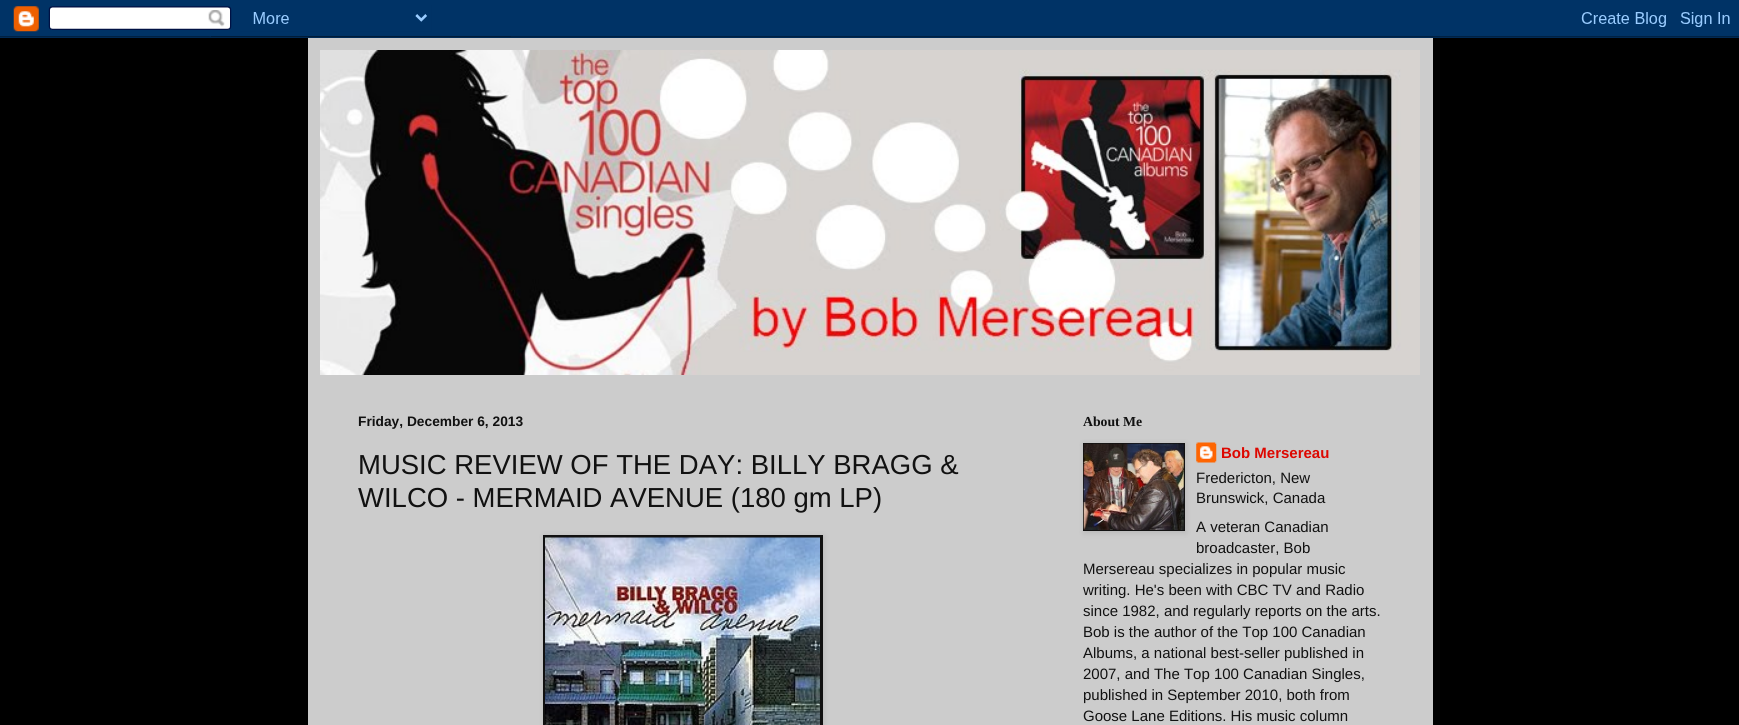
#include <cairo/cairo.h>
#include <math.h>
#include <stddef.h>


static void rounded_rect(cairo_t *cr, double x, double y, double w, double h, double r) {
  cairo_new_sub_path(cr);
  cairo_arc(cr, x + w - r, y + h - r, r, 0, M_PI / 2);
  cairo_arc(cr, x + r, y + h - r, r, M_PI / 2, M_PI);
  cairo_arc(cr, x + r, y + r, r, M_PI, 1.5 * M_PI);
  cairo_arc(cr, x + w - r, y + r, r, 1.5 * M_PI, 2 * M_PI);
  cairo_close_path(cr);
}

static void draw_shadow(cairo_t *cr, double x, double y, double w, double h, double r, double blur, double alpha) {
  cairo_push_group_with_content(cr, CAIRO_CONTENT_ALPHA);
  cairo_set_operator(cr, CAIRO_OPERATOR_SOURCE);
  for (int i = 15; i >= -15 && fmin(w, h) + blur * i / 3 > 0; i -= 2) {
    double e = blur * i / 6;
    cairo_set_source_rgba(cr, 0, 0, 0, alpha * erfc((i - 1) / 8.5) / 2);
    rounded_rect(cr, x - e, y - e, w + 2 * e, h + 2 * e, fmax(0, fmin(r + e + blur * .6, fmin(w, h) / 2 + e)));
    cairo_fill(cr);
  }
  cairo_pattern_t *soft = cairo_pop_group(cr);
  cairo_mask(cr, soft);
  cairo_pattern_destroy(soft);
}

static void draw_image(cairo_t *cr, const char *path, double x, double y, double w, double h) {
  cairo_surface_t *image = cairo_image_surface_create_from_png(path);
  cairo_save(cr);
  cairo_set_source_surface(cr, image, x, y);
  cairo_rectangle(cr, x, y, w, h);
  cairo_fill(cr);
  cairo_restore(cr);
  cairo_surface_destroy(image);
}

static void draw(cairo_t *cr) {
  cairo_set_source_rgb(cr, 0, 0, 0);
  cairo_paint(cr);
  draw_image(cr, "images/1.png", 0, 0, 1739, 38);
  cairo_set_source_rgb(cr, 204 / 255.0, 204 / 255.0, 204 / 255.0);
  cairo_rectangle(cr, 308, 38, 1125, 687);
  cairo_fill(cr);
  draw_image(cr, "images/2.png", 320, 50, 1100, 325);
  cairo_set_source_rgb(cr, 0, 0, 0);
  draw_shadow(cr, 544, 536, 280, 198, 0, 3, 0.1);
  cairo_set_source_rgb(cr, 17 / 255.0, 17 / 255.0, 17 / 255.0);
  cairo_rectangle(cr, 543, 535, 280, 190);
  cairo_fill(cr);
  draw_image(cr, "images/3.png", 545, 537, 275, 188);
  cairo_set_source_rgb(cr, 0, 0, 0);
  draw_shadow(cr, 1084, 444, 102, 89, 0, 3, 0.1);
  cairo_set_source_rgb(cr, 17 / 255.0, 17 / 255.0, 17 / 255.0);
  cairo_rectangle(cr, 1083, 443, 102, 88);
  cairo_fill(cr);
  draw_image(cr, "images/4.png", 1083, 443, 101, 87);
  draw_image(cr, "images/5.png", 1196, 442, 21, 21);
  cairo_select_font_face(cr, "Liberation Sans", CAIRO_FONT_SLANT_NORMAL, CAIRO_FONT_WEIGHT_BOLD);
  cairo_set_font_size(cr, 13.75);
  cairo_move_to(cr, 358, 426);
  cairo_show_text(cr, "Friday, December 6, 2013");
  cairo_select_font_face(cr, "Liberation Sans", CAIRO_FONT_SLANT_NORMAL, CAIRO_FONT_WEIGHT_NORMAL);
  cairo_set_font_size(cr, 27.5);
  cairo_move_to(cr, 358, 474);
  cairo_show_text(cr, "MUSIC REVIEW OF THE DAY: BILLY BRAGG &");
  cairo_move_to(cr, 358, 507);
  cairo_show_text(cr, "WILCO - MERMAID AVENUE (180 gm LP)");
  cairo_select_font_face(cr, "Liberation Serif", CAIRO_FONT_SLANT_NORMAL, CAIRO_FONT_WEIGHT_BOLD);
  cairo_set_font_size(cr, 13.75);
  cairo_move_to(cr, 1083, 426);
  cairo_show_text(cr, "About Me");
  cairo_select_font_face(cr, "Liberation Sans", CAIRO_FONT_SLANT_NORMAL, CAIRO_FONT_WEIGHT_BOLD);
  cairo_set_font_size(cr, 15);
  cairo_set_source_rgb(cr, 221 / 255.0, 7 / 255.0, 0);
  cairo_move_to(cr, 1221, 458);
  cairo_show_text(cr, "Bob Mersereau");
  cairo_select_font_face(cr, "Liberation Sans", CAIRO_FONT_SLANT_NORMAL, CAIRO_FONT_WEIGHT_NORMAL);
  cairo_set_source_rgb(cr, 17 / 255.0, 17 / 255.0, 17 / 255.0);
  cairo_move_to(cr, 1196, 483);
  cairo_show_text(cr, "Fredericton, New");
  cairo_move_to(cr, 1196, 503);
  cairo_show_text(cr, "Brunswick, Canada");
  cairo_move_to(cr, 1196, 532);
  cairo_show_text(cr, "A veteran Canadian");
  cairo_move_to(cr, 1196, 553);
  cairo_show_text(cr, "broadcaster, Bob");
  cairo_move_to(cr, 1083, 574);
  cairo_show_text(cr, "Mersereau specializes in popular music");
  cairo_move_to(cr, 1083, 595);
  cairo_show_text(cr, "writing. He's been with CBC TV and Radio");
  cairo_move_to(cr, 1083, 616);
  cairo_show_text(cr, "since 1982, and regularly reports on the arts.");
  cairo_move_to(cr, 1083, 637);
  cairo_show_text(cr, "Bob is the author of the Top 100 Canadian");
  cairo_move_to(cr, 1083, 658);
  cairo_show_text(cr, "Albums, a national best-seller published in");
  cairo_move_to(cr, 1083, 679);
  cairo_show_text(cr, "2007, and The Top 100 Canadian Singles,");
  cairo_move_to(cr, 1083, 700);
  cairo_show_text(cr, "published in September 2010, both from");
  cairo_move_to(cr, 1083, 721);
  cairo_show_text(cr, "Goose Lane Editions. His music column");
}

int main(void) {
  cairo_surface_t *surface = cairo_image_surface_create(CAIRO_FORMAT_RGB24, 1739, 725);
  cairo_t *cr = cairo_create(surface);
  cairo_font_options_t *options = cairo_font_options_create();
  cairo_font_options_set_hint_metrics(options, CAIRO_HINT_METRICS_OFF);
  cairo_font_options_set_hint_style(options, CAIRO_HINT_STYLE_NONE);
  cairo_set_font_options(cr, options);
  cairo_set_miter_limit(cr, 4);
  draw(cr);
  cairo_surface_write_to_png(surface, "out.png");
  cairo_font_options_destroy(options);
  cairo_destroy(cr);
  cairo_surface_destroy(surface);
  return 0;
}
